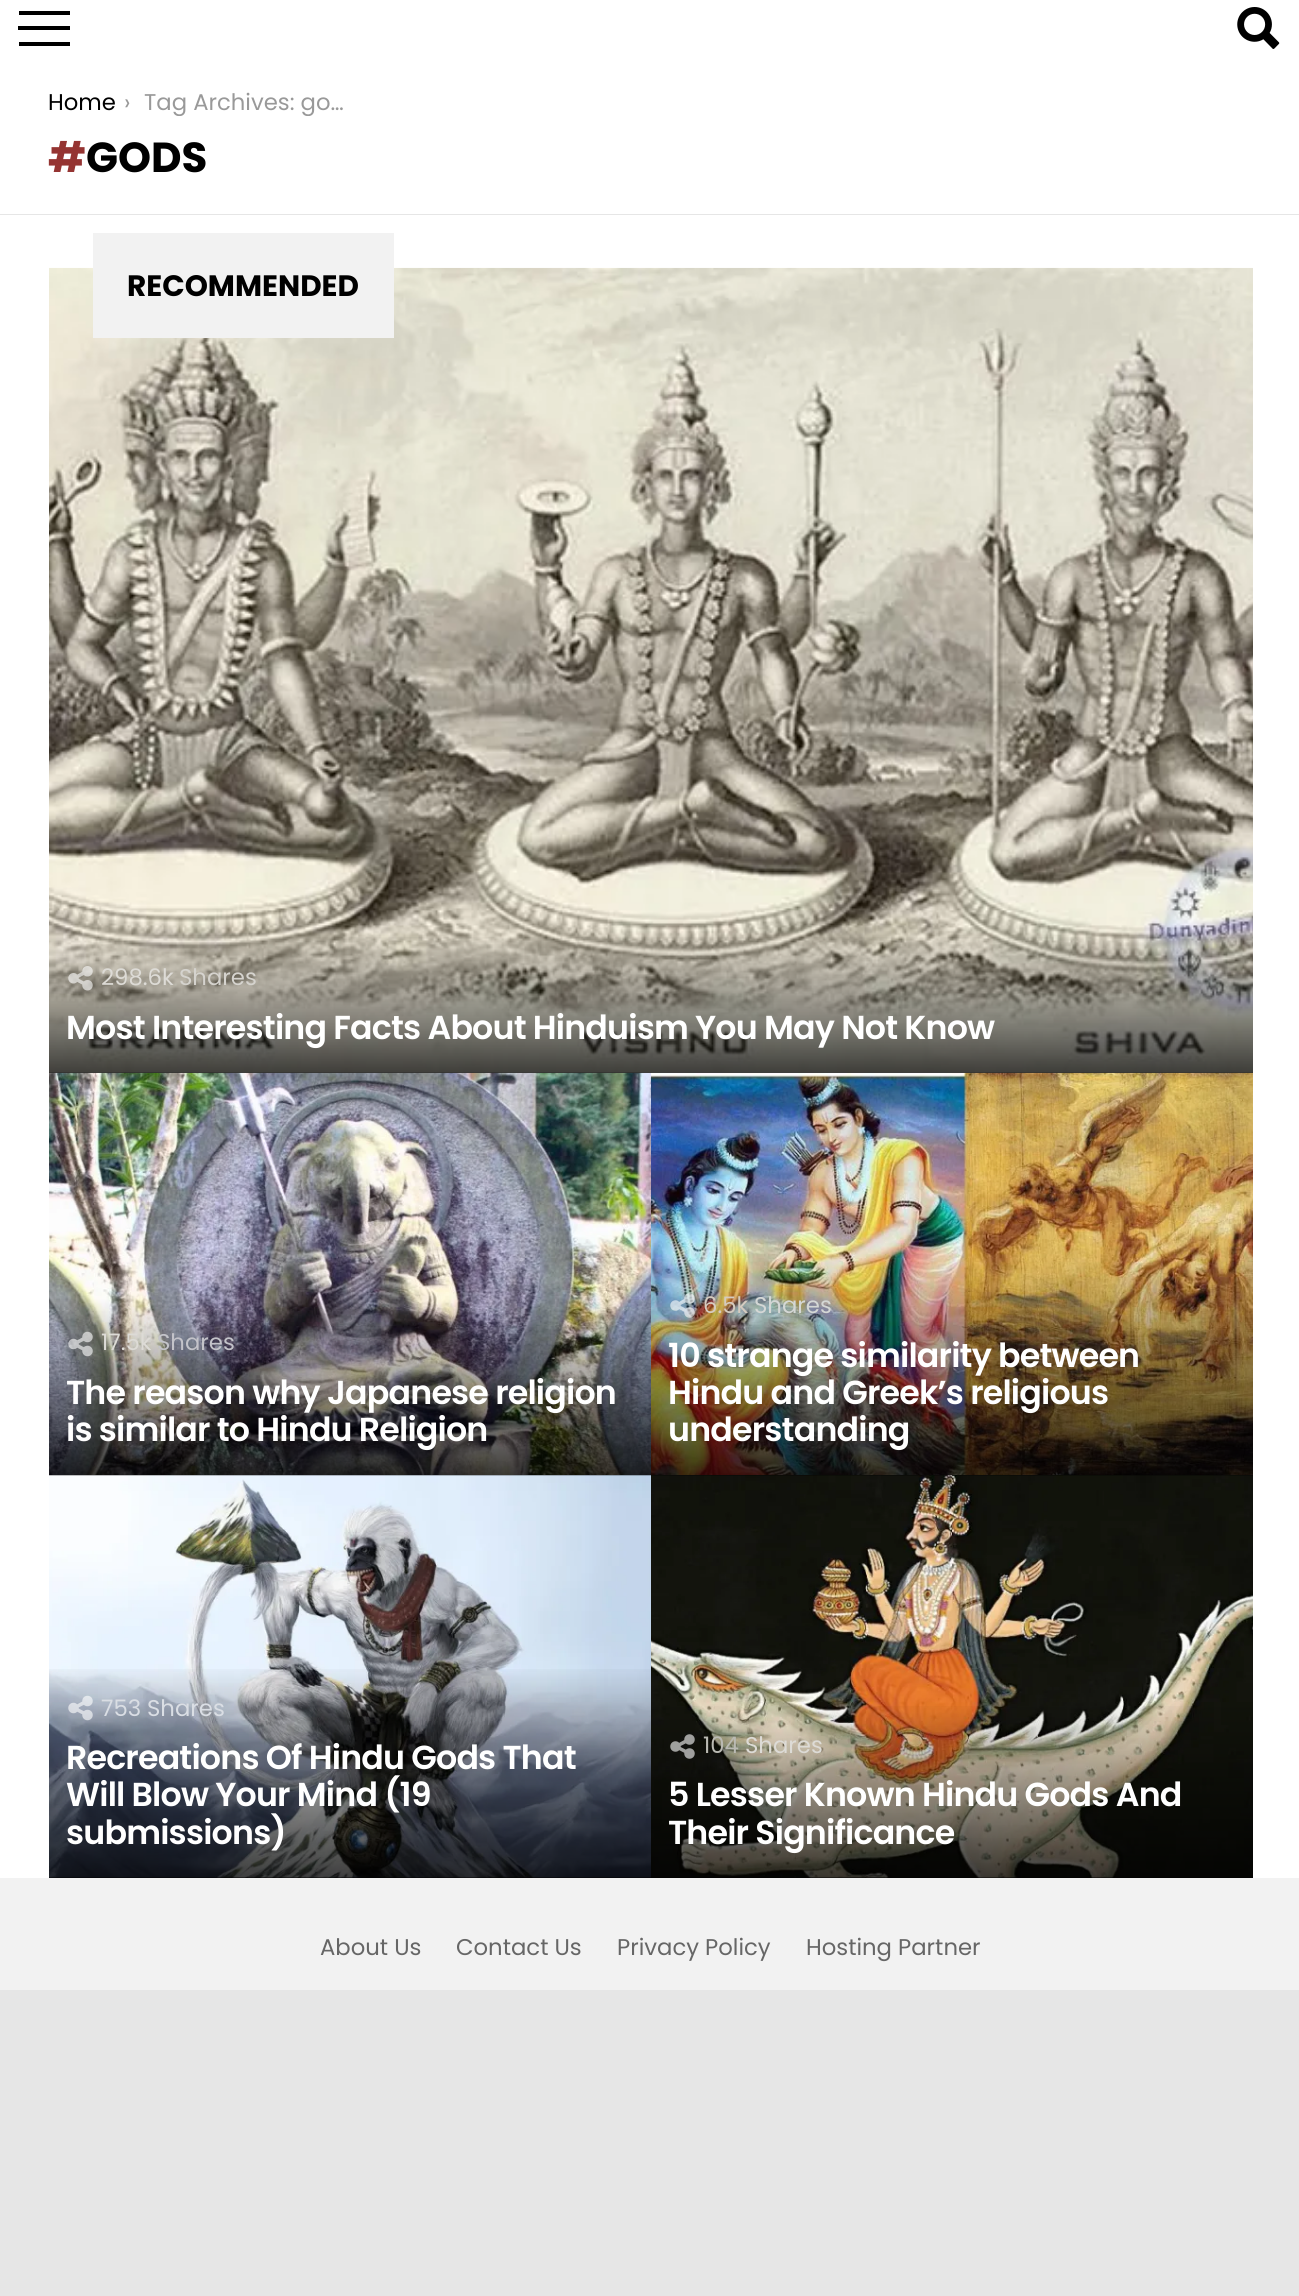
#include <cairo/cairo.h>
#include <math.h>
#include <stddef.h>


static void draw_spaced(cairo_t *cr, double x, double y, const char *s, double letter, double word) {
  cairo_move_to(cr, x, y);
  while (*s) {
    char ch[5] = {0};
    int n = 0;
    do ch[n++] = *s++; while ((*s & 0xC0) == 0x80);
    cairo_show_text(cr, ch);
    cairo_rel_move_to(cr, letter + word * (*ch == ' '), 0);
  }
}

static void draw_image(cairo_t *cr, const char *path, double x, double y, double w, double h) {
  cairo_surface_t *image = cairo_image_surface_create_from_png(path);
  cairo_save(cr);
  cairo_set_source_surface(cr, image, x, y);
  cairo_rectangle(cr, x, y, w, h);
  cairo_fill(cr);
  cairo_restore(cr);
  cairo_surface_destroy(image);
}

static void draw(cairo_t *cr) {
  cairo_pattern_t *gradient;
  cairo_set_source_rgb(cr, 230 / 255.0, 230 / 255.0, 230 / 255.0);
  cairo_paint(cr);
  cairo_set_source_rgb(cr, 1, 1, 1);
  cairo_rectangle(cr, 0, 0, 1299, 214);
  cairo_fill(cr);
  cairo_set_source_rgb(cr, 0, 0, 0);
  cairo_rectangle(cr, 19, 11, 51, 4);
  cairo_fill(cr);
  cairo_rectangle(cr, 19, 42, 51, 4);
  cairo_fill(cr);
  cairo_rectangle(cr, 18, 26, 52, 4);
  cairo_fill(cr);
  draw_image(cr, "images/1.png", 1237, 7, 43, 42);
  cairo_set_source_rgb(cr, 1, 1, 1);
  cairo_rectangle(cr, 0, 215, 1299, 1663);
  cairo_fill(cr);
  draw_image(cr, "images/2.png", 49, 267, 1204, 806);
  cairo_set_source_rgb(cr, 242 / 255.0, 242 / 255.0, 242 / 255.0);
  cairo_rectangle(cr, 93, 233, 301, 105);
  cairo_fill(cr);
  draw_image(cr, "images/4.png", 49, 1072, 602, 403);
  draw_image(cr, "images/6.png", 651, 1072, 602, 403);
  gradient = cairo_pattern_create_linear(651, 933, 651, 1073);
  cairo_pattern_add_color_stop_rgba(gradient, 0, 0, 0, 0, 0);
  cairo_pattern_add_color_stop_rgba(gradient, 1, 0, 0, 0, 0.75);
  cairo_set_source(cr, gradient);
  cairo_pattern_destroy(gradient);
  cairo_rectangle(cr, 49, 937, 1204, 136);
  cairo_fill(cr);
  draw_image(cr, "images/3.png", 68, 966, 25, 25);
  draw_image(cr, "images/5.png", 68, 1331, 25, 26);
  draw_image(cr, "images/7.png", 670, 1293, 25, 25);
  cairo_set_source_rgb(cr, 0, 0, 0);
  cairo_rectangle(cr, 49, 1475, 1204, 403);
  cairo_fill(cr);
  draw_image(cr, "images/8.png", 49, 1475, 602, 403);
  gradient = cairo_pattern_create_linear(350, 1663, 350, 1878);
  cairo_pattern_add_color_stop_rgba(gradient, 0, 0, 0, 0, 0);
  cairo_pattern_add_color_stop_rgba(gradient, 1, 0, 0, 0, 0.75);
  cairo_set_source(cr, gradient);
  cairo_pattern_destroy(gradient);
  cairo_rectangle(cr, 49, 1669, 602, 209);
  cairo_fill(cr);
  draw_image(cr, "images/9.png", 68, 1695, 25, 26);
  draw_image(cr, "images/10.png", 651, 1475, 602, 403);
  gradient = cairo_pattern_create_linear(952, 1701, 952, 1878);
  cairo_pattern_add_color_stop_rgba(gradient, 0, 0, 0, 0, 0);
  cairo_pattern_add_color_stop_rgba(gradient, 1, 0, 0, 0, 0.75);
  cairo_set_source(cr, gradient);
  cairo_pattern_destroy(gradient);
  cairo_rectangle(cr, 651, 1706, 602, 172);
  cairo_fill(cr);
  draw_image(cr, "images/11.png", 670, 1734, 25, 25);
  cairo_set_source_rgb(cr, 242 / 255.0, 242 / 255.0, 242 / 255.0);
  cairo_rectangle(cr, 0, 1878, 1299, 112);
  cairo_fill(cr);
  cairo_select_font_face(cr, "Poppins", CAIRO_FONT_SLANT_NORMAL, CAIRO_FONT_WEIGHT_NORMAL);
  cairo_set_font_size(cr, 22.75);
  cairo_set_source_rgb(cr, 0, 0, 0);
  cairo_move_to(cr, 48, 110);
  cairo_show_text(cr, "Home");
  cairo_set_source_rgb(cr, 153 / 255.0, 153 / 255.0, 153 / 255.0);
  cairo_move_to(cr, 124, 110);
  cairo_show_text(cr, "›");
  cairo_save(cr);
  cairo_rectangle(cr, 124, 89, 228, 27);
  cairo_clip(cr);
  cairo_move_to(cr, 144, 110);
  cairo_show_text(cr, "Tag Archives: go…");
  cairo_restore(cr);
  cairo_select_font_face(cr, "Poppins", CAIRO_FONT_SLANT_NORMAL, CAIRO_FONT_WEIGHT_BOLD);
  cairo_set_font_size(cr, 42);
  cairo_set_source_rgb(cr, 149 / 255.0, 52 / 255.0, 50 / 255.0);
  cairo_move_to(cr, 48, 172);
  cairo_show_text(cr, "#");
  cairo_set_source_rgb(cr, 0, 0, 0);
  cairo_move_to(cr, 86, 172);
  cairo_show_text(cr, "GODS");
  cairo_set_font_size(cr, 29.5);
  cairo_move_to(cr, 127, 296);
  cairo_show_text(cr, "RECOMMENDED");
  cairo_select_font_face(cr, "Poppins", CAIRO_FONT_SLANT_NORMAL, CAIRO_FONT_WEIGHT_NORMAL);
  cairo_set_font_size(cr, 22.75);
  cairo_set_source_rgb(cr, 221 / 255.0, 219 / 255.0, 214 / 255.0);
  cairo_move_to(cr, 101, 985);
  cairo_show_text(cr, "298.6k");
  cairo_set_source_rgb(cr, 213 / 255.0, 211 / 255.0, 206 / 255.0);
  cairo_move_to(cr, 179, 985);
  cairo_show_text(cr, "Shares");
  cairo_select_font_face(cr, "Poppins SemiBold", CAIRO_FONT_SLANT_NORMAL, CAIRO_FONT_WEIGHT_NORMAL);
  cairo_set_font_size(cr, 33.25);
  cairo_set_source_rgb(cr, 1, 1, 1);
  draw_spaced(cr, 66, 1039, "Most Interesting Facts About Hinduism You May Not Know", -0.83, 0);
  cairo_select_font_face(cr, "Poppins", CAIRO_FONT_SLANT_NORMAL, CAIRO_FONT_WEIGHT_NORMAL);
  cairo_set_font_size(cr, 22.75);
  cairo_set_source_rgb(cr, 221 / 255.0, 219 / 255.0, 214 / 255.0);
  cairo_move_to(cr, 101, 1350);
  cairo_show_text(cr, "17.5k");
  cairo_set_source_rgb(cr, 195 / 255.0, 195 / 255.0, 201 / 255.0);
  cairo_move_to(cr, 157, 1350);
  cairo_show_text(cr, "Shares");
  cairo_select_font_face(cr, "Poppins SemiBold", CAIRO_FONT_SLANT_NORMAL, CAIRO_FONT_WEIGHT_NORMAL);
  cairo_set_font_size(cr, 33.25);
  cairo_set_source_rgb(cr, 1, 1, 1);
  draw_spaced(cr, 66, 1404, "The reason why Japanese religion", -0.83, 0);
  draw_spaced(cr, 66, 1441, "is similar to Hindu Religion", -0.83, 0);
  cairo_select_font_face(cr, "Poppins", CAIRO_FONT_SLANT_NORMAL, CAIRO_FONT_WEIGHT_NORMAL);
  cairo_set_font_size(cr, 22.75);
  cairo_set_source_rgb(cr, 213 / 255.0, 203 / 255.0, 191 / 255.0);
  cairo_move_to(cr, 703, 1313);
  cairo_show_text(cr, "6.5k");
  cairo_set_source_rgb(cr, 212 / 255.0, 215 / 255.0, 213 / 255.0);
  cairo_move_to(cr, 754, 1313);
  cairo_show_text(cr, "Shares");
  cairo_select_font_face(cr, "Poppins SemiBold", CAIRO_FONT_SLANT_NORMAL, CAIRO_FONT_WEIGHT_NORMAL);
  cairo_set_font_size(cr, 33.25);
  cairo_set_source_rgb(cr, 1, 1, 1);
  draw_spaced(cr, 668, 1367, "10 strange similarity between", -0.83, 0);
  draw_spaced(cr, 668, 1404, "Hindu and Greek’s religious", -0.83, 0);
  draw_spaced(cr, 668, 1441, "understanding", -0.83, 0);
  cairo_select_font_face(cr, "Poppins", CAIRO_FONT_SLANT_NORMAL, CAIRO_FONT_WEIGHT_NORMAL);
  cairo_set_font_size(cr, 22.75);
  cairo_set_source_rgb(cr, 218 / 255.0, 222 / 255.0, 228 / 255.0);
  cairo_move_to(cr, 101, 1716);
  cairo_show_text(cr, "753");
  cairo_move_to(cr, 147, 1716);
  cairo_show_text(cr, "Shares");
  cairo_select_font_face(cr, "Poppins SemiBold", CAIRO_FONT_SLANT_NORMAL, CAIRO_FONT_WEIGHT_NORMAL);
  cairo_set_font_size(cr, 33.25);
  cairo_set_source_rgb(cr, 1, 1, 1);
  draw_spaced(cr, 66, 1769, "Recreations Of Hindu Gods That", -0.83, 0);
  draw_spaced(cr, 66, 1806, "Will Blow Your Mind (19", -0.83, 0);
  draw_spaced(cr, 66, 1844, "submissions)", -0.83, 0);
  cairo_select_font_face(cr, "Poppins", CAIRO_FONT_SLANT_NORMAL, CAIRO_FONT_WEIGHT_NORMAL);
  cairo_set_font_size(cr, 22.75);
  cairo_set_source_rgb(cr, 186 / 255.0, 186 / 255.0, 179 / 255.0);
  cairo_move_to(cr, 703, 1753);
  cairo_show_text(cr, "104");
  cairo_set_source_rgb(cr, 221 / 255.0, 219 / 255.0, 214 / 255.0);
  cairo_move_to(cr, 745, 1753);
  cairo_show_text(cr, "Shares");
  cairo_select_font_face(cr, "Poppins SemiBold", CAIRO_FONT_SLANT_NORMAL, CAIRO_FONT_WEIGHT_NORMAL);
  cairo_set_font_size(cr, 33.25);
  cairo_set_source_rgb(cr, 1, 1, 1);
  draw_spaced(cr, 668, 1806, "5 Lesser Known Hindu Gods And", -0.83, 0);
  draw_spaced(cr, 668, 1844, "Their Significance", -0.83, 0);
  cairo_select_font_face(cr, "Poppins", CAIRO_FONT_SLANT_NORMAL, CAIRO_FONT_WEIGHT_NORMAL);
  cairo_set_font_size(cr, 22.75);
  cairo_set_source_rgb(cr, 102 / 255.0, 102 / 255.0, 102 / 255.0);
  cairo_move_to(cr, 320, 1955);
  cairo_show_text(cr, "About Us");
  cairo_move_to(cr, 456, 1955);
  cairo_show_text(cr, "Contact Us");
  cairo_move_to(cr, 617, 1955);
  cairo_show_text(cr, "Privacy Policy");
  cairo_move_to(cr, 806, 1955);
  cairo_show_text(cr, "Hosting Partner");
}

int main(void) {
  cairo_surface_t *surface = cairo_image_surface_create(CAIRO_FORMAT_RGB24, 1299, 2296);
  cairo_t *cr = cairo_create(surface);
  cairo_font_options_t *options = cairo_font_options_create();
  cairo_font_options_set_hint_metrics(options, CAIRO_HINT_METRICS_OFF);
  cairo_font_options_set_hint_style(options, CAIRO_HINT_STYLE_NONE);
  cairo_set_font_options(cr, options);
  cairo_set_miter_limit(cr, 4);
  draw(cr);
  cairo_surface_write_to_png(surface, "out.png");
  cairo_font_options_destroy(options);
  cairo_destroy(cr);
  cairo_surface_destroy(surface);
  return 0;
}
